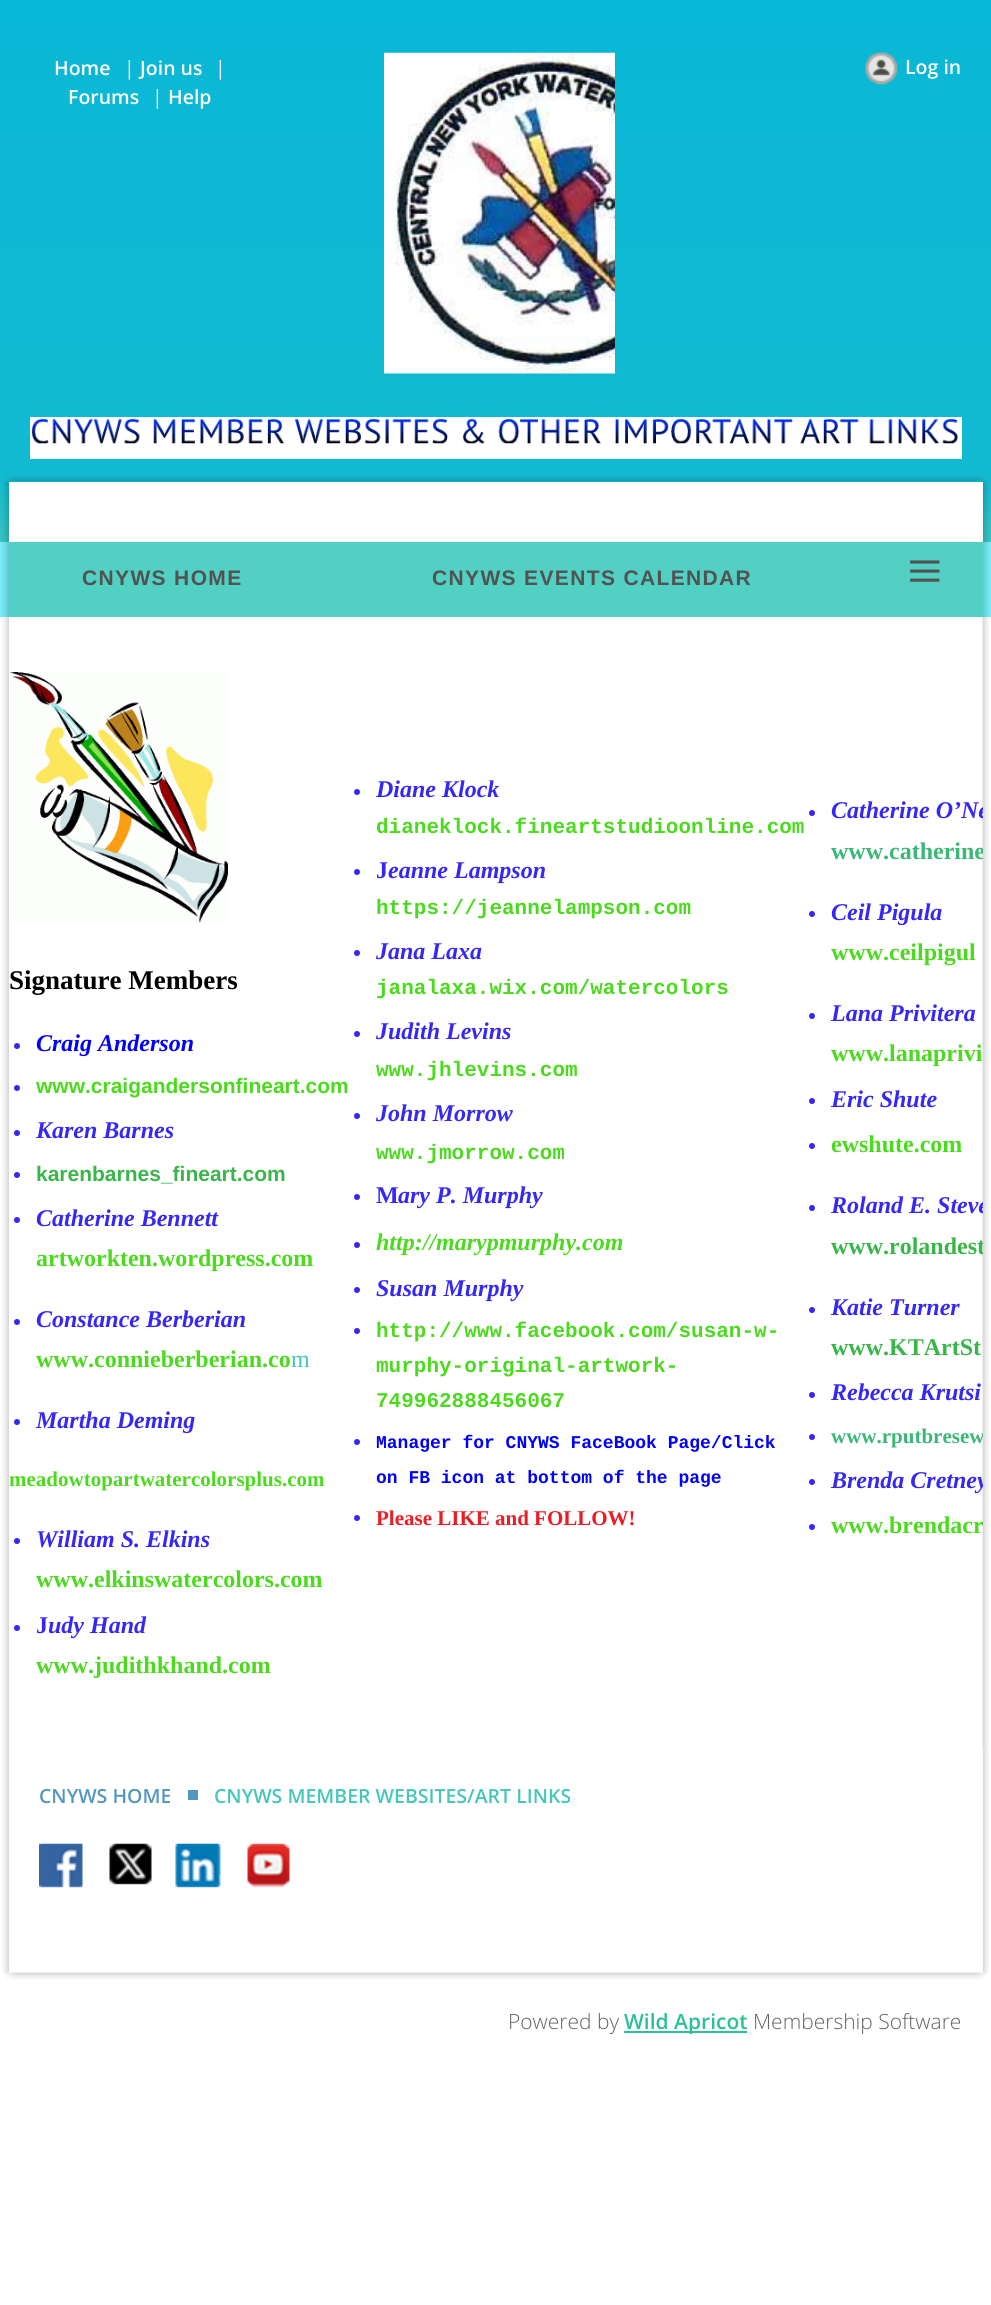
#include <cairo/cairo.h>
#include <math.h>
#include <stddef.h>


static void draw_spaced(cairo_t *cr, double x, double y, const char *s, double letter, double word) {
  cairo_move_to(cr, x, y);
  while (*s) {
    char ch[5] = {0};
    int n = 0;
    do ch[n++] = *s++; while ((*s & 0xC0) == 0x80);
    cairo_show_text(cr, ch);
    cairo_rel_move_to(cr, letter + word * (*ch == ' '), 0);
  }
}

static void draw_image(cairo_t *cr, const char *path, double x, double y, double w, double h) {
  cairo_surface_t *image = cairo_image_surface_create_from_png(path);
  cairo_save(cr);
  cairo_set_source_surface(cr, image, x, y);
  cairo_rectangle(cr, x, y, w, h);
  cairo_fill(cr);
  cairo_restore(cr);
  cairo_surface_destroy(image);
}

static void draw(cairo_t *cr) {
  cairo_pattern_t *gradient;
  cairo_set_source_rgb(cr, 1, 1, 1);
  cairo_paint(cr);
  gradient = cairo_pattern_create_linear(496, 0, 496, 482);
  cairo_pattern_add_color_stop_rgba(gradient, 0, 9 / 255.0, 183 / 255.0, 214 / 255.0, 1);
  cairo_pattern_add_color_stop_rgba(gradient, 1, 18 / 255.0, 186 / 255.0, 209 / 255.0, 1);
  cairo_set_source(cr, gradient);
  cairo_pattern_destroy(gradient);
  cairo_rectangle(cr, 0, 0, 991, 482);
  cairo_fill(cr);
  draw_image(cr, "images/1.png", 384, 52, 231, 322);
  draw_image(cr, "images/2.png", 865, 52, 33, 33);
  cairo_set_source_rgb(cr, 1, 1, 1);
  cairo_rectangle(cr, 30, 417, 932, 42);
  cairo_fill(cr);
  draw_image(cr, "images/3.png", 31, 418, 927, 26);
  draw_image(cr, "images/4.png", 4, 475, 983, 7);
  draw_image(cr, "images/5.png", 16, 475, 959, 7);
  gradient = cairo_pattern_create_linear(496, 481, 496, 542);
  cairo_pattern_add_color_stop_rgba(gradient, 0, 18 / 255.0, 186 / 255.0, 209 / 255.0, 1);
  cairo_pattern_add_color_stop_rgba(gradient, 1, 56 / 255.0, 195 / 255.0, 191 / 255.0, 1);
  cairo_set_source(cr, gradient);
  cairo_pattern_destroy(gradient);
  cairo_rectangle(cr, 0, 482, 991, 60);
  cairo_fill(cr);
  draw_image(cr, "images/6.png", 2, 481, 987, 61);
  cairo_set_source_rgb(cr, 1, 1, 1);
  cairo_rectangle(cr, 9, 482, 974, 60);
  cairo_fill(cr);
  cairo_set_source_rgb(cr, 120 / 255.0, 234 / 255.0, 248 / 255.0);
  cairo_rectangle(cr, 0, 542, 991, 75);
  cairo_fill(cr);
  draw_image(cr, "images/7.png", 2, 541, 987, 76);
  draw_image(cr, "images/8.png", 2, 616, 987, 1132);
  cairo_set_source_rgb(cr, 81 / 255.0, 208 / 255.0, 195 / 255.0);
  cairo_rectangle(cr, 9, 542, 974, 75);
  cairo_fill(cr);
  draw_image(cr, "images/9.png", 10, 672, 218, 251);
  cairo_set_source_rgb(cr, 53 / 255.0, 40 / 255.0, 247 / 255.0);
  cairo_arc(cr, 17, 1046, 3, 0, 2 * M_PI);
  cairo_fill(cr);
  cairo_arc(cr, 17, 1088, 3, 0, 2 * M_PI);
  cairo_fill(cr);
  cairo_arc(cr, 17, 1133, 3, 0, 2 * M_PI);
  cairo_fill(cr);
  cairo_arc(cr, 17, 1175, 3, 0, 2 * M_PI);
  cairo_fill(cr);
  cairo_arc(cr, 17, 1220, 3, 0, 2 * M_PI);
  cairo_fill(cr);
  cairo_arc(cr, 17, 1322, 3, 0, 2 * M_PI);
  cairo_fill(cr);
  cairo_arc(cr, 17, 1422, 3, 0, 2 * M_PI);
  cairo_fill(cr);
  cairo_arc(cr, 17, 1541, 3, 0, 2 * M_PI);
  cairo_fill(cr);
  cairo_arc(cr, 17, 1628, 3, 0, 2 * M_PI);
  cairo_fill(cr);
  cairo_arc(cr, 357, 792, 3, 0, 2 * M_PI);
  cairo_fill(cr);
  cairo_arc(cr, 357, 872, 3, 0, 2 * M_PI);
  cairo_fill(cr);
  cairo_arc(cr, 357, 953, 3, 0, 2 * M_PI);
  cairo_fill(cr);
  cairo_arc(cr, 357, 1034, 3, 0, 2 * M_PI);
  cairo_fill(cr);
  cairo_arc(cr, 357, 1116, 3, 0, 2 * M_PI);
  cairo_fill(cr);
  cairo_arc(cr, 357, 1197, 3, 0, 2 * M_PI);
  cairo_fill(cr);
  cairo_arc(cr, 357, 1245, 3, 0, 2 * M_PI);
  cairo_fill(cr);
  cairo_arc(cr, 357, 1290, 3, 0, 2 * M_PI);
  cairo_fill(cr);
  cairo_arc(cr, 357, 1331, 3, 0, 2 * M_PI);
  cairo_fill(cr);
  cairo_arc(cr, 357, 1442, 3, 0, 2 * M_PI);
  cairo_fill(cr);
  cairo_arc(cr, 357, 1518, 3, 0, 2 * M_PI);
  cairo_fill(cr);
  cairo_arc(cr, 812, 813, 3, 0, 2 * M_PI);
  cairo_fill(cr);
  cairo_arc(cr, 812, 914, 3, 0, 2 * M_PI);
  cairo_fill(cr);
  cairo_arc(cr, 812, 1016, 3, 0, 2 * M_PI);
  cairo_fill(cr);
  cairo_arc(cr, 812, 1101, 3, 0, 2 * M_PI);
  cairo_fill(cr);
  cairo_arc(cr, 812, 1146, 3, 0, 2 * M_PI);
  cairo_fill(cr);
  cairo_arc(cr, 812, 1208, 3, 0, 2 * M_PI);
  cairo_fill(cr);
  cairo_arc(cr, 812, 1310, 3, 0, 2 * M_PI);
  cairo_fill(cr);
  cairo_arc(cr, 812, 1395, 3, 0, 2 * M_PI);
  cairo_fill(cr);
  cairo_arc(cr, 812, 1437, 3, 0, 2 * M_PI);
  cairo_fill(cr);
  cairo_arc(cr, 812, 1482, 3, 0, 2 * M_PI);
  cairo_fill(cr);
  cairo_arc(cr, 812, 1527, 3, 0, 2 * M_PI);
  cairo_fill(cr);
  draw_image(cr, "images/10.png", 2, 1747, 987, 226);
  cairo_set_source_rgb(cr, 1, 1, 1);
  cairo_rectangle(cr, 982, 1748, 1, 225);
  cairo_fill(cr);
  cairo_set_source_rgb(cr, 82 / 255.0, 151 / 255.0, 191 / 255.0);
  cairo_rectangle(cr, 188, 1790, 10, 10);
  cairo_fill(cr);
  draw_image(cr, "images/11.png", 39, 1843, 44, 45);
  draw_image(cr, "images/12.png", 109, 1843, 43, 42);
  draw_image(cr, "images/13.png", 175, 1843, 46, 45);
  draw_image(cr, "images/14.png", 247, 1843, 43, 45);
  draw_image(cr, "images/15.png", 4, 1972, 983, 7);
  draw_image(cr, "images/16.png", 16, 1972, 959, 7);
  cairo_set_source_rgb(cr, 42 / 255.0, 193 / 255.0, 148 / 255.0);
  cairo_rectangle(cr, 624, 2031, 123, 2);
  cairo_fill(cr);
  cairo_select_font_face(cr, "Open Sans SemiBold", CAIRO_FONT_SLANT_NORMAL, CAIRO_FONT_WEIGHT_NORMAL);
  cairo_set_font_size(cr, 19.5);
  cairo_set_source_rgb(cr, 1, 1, 1);
  cairo_move_to(cr, 54, 75);
  cairo_show_text(cr, "Home");
  cairo_select_font_face(cr, "Open Sans", CAIRO_FONT_SLANT_NORMAL, CAIRO_FONT_WEIGHT_NORMAL);
  cairo_move_to(cr, 124, 75);
  cairo_show_text(cr, "|");
  cairo_select_font_face(cr, "Open Sans SemiBold", CAIRO_FONT_SLANT_NORMAL, CAIRO_FONT_WEIGHT_NORMAL);
  cairo_move_to(cr, 140, 75);
  cairo_show_text(cr, "Join us");
  cairo_select_font_face(cr, "Open Sans", CAIRO_FONT_SLANT_NORMAL, CAIRO_FONT_WEIGHT_NORMAL);
  cairo_move_to(cr, 215, 75);
  cairo_show_text(cr, "|");
  cairo_select_font_face(cr, "Open Sans SemiBold", CAIRO_FONT_SLANT_NORMAL, CAIRO_FONT_WEIGHT_NORMAL);
  cairo_move_to(cr, 68, 104);
  cairo_show_text(cr, "Forums");
  cairo_select_font_face(cr, "Open Sans", CAIRO_FONT_SLANT_NORMAL, CAIRO_FONT_WEIGHT_NORMAL);
  cairo_move_to(cr, 152, 104);
  cairo_show_text(cr, "|");
  cairo_select_font_face(cr, "Open Sans SemiBold", CAIRO_FONT_SLANT_NORMAL, CAIRO_FONT_WEIGHT_NORMAL);
  cairo_move_to(cr, 168, 104);
  cairo_show_text(cr, "Help");
  cairo_move_to(cr, 905, 74);
  cairo_show_text(cr, "Log in");
  cairo_select_font_face(cr, "Liberation Sans", CAIRO_FONT_SLANT_NORMAL, CAIRO_FONT_WEIGHT_BOLD);
  cairo_set_font_size(cr, 21);
  cairo_set_source_rgb(cr, 82 / 255.0, 82 / 255.0, 82 / 255.0);
  draw_spaced(cr, 82, 585, "CNYWS HOME", 1.35, 0);
  draw_spaced(cr, 432, 585, "CNYWS EVENTS CALENDAR", 1.35, 0);
  cairo_select_font_face(cr, "Liberation Serif", CAIRO_FONT_SLANT_NORMAL, CAIRO_FONT_WEIGHT_NORMAL);
  cairo_set_font_size(cr, 63);
  draw_spaced(cr, 907, 592, "≡", 1.35, 0);
  cairo_select_font_face(cr, "Liberation Serif", CAIRO_FONT_SLANT_NORMAL, CAIRO_FONT_WEIGHT_BOLD);
  cairo_set_font_size(cr, 27);
  cairo_set_source_rgb(cr, 0, 0, 0);
  cairo_move_to(cr, 9, 989);
  cairo_show_text(cr, "Signature Members");
  cairo_select_font_face(cr, "Liberation Serif", CAIRO_FONT_SLANT_ITALIC, CAIRO_FONT_WEIGHT_BOLD);
  cairo_set_font_size(cr, 24);
  cairo_set_source_rgb(cr, 0, 0, 1);
  cairo_move_to(cr, 36, 1051);
  cairo_show_text(cr, "Craig Anderson");
  cairo_select_font_face(cr, "Liberation Sans", CAIRO_FONT_SLANT_NORMAL, CAIRO_FONT_WEIGHT_BOLD);
  cairo_set_font_size(cr, 21);
  cairo_set_source_rgb(cr, 76 / 255.0, 218 / 255.0, 31 / 255.0);
  cairo_move_to(cr, 36, 1093);
  cairo_show_text(cr, "www.craigandersonfineart.com");
  cairo_select_font_face(cr, "Liberation Serif", CAIRO_FONT_SLANT_ITALIC, CAIRO_FONT_WEIGHT_BOLD);
  cairo_set_font_size(cr, 24);
  cairo_set_source_rgb(cr, 53 / 255.0, 40 / 255.0, 247 / 255.0);
  cairo_move_to(cr, 36, 1138);
  cairo_show_text(cr, "Karen Barnes");
  cairo_select_font_face(cr, "Liberation Sans", CAIRO_FONT_SLANT_NORMAL, CAIRO_FONT_WEIGHT_BOLD);
  cairo_set_font_size(cr, 21);
  cairo_set_source_rgb(cr, 57 / 255.0, 181 / 255.0, 74 / 255.0);
  cairo_move_to(cr, 36, 1181);
  cairo_show_text(cr, "karenbarnes_fineart.com");
  cairo_select_font_face(cr, "Liberation Serif", CAIRO_FONT_SLANT_ITALIC, CAIRO_FONT_WEIGHT_BOLD);
  cairo_set_font_size(cr, 24);
  cairo_set_source_rgb(cr, 53 / 255.0, 40 / 255.0, 247 / 255.0);
  cairo_move_to(cr, 36, 1226);
  cairo_show_text(cr, "Catherine Bennett");
  cairo_select_font_face(cr, "Liberation Serif", CAIRO_FONT_SLANT_NORMAL, CAIRO_FONT_WEIGHT_BOLD);
  cairo_set_source_rgb(cr, 76 / 255.0, 218 / 255.0, 31 / 255.0);
  cairo_move_to(cr, 36, 1266);
  cairo_show_text(cr, "artworkten.wordpress.com");
  cairo_select_font_face(cr, "Liberation Serif", CAIRO_FONT_SLANT_ITALIC, CAIRO_FONT_WEIGHT_BOLD);
  cairo_set_source_rgb(cr, 53 / 255.0, 40 / 255.0, 247 / 255.0);
  cairo_move_to(cr, 36, 1327);
  cairo_show_text(cr, "Constance Berberian");
  cairo_select_font_face(cr, "Liberation Serif", CAIRO_FONT_SLANT_NORMAL, CAIRO_FONT_WEIGHT_BOLD);
  cairo_set_source_rgb(cr, 76 / 255.0, 218 / 255.0, 31 / 255.0);
  cairo_move_to(cr, 36, 1367);
  cairo_show_text(cr, "www.connieberberian.co");
  cairo_select_font_face(cr, "Liberation Serif", CAIRO_FONT_SLANT_NORMAL, CAIRO_FONT_WEIGHT_NORMAL);
  cairo_set_source_rgb(cr, 69 / 255.0, 198 / 255.0, 185 / 255.0);
  cairo_move_to(cr, 291, 1367);
  cairo_show_text(cr, "m");
  cairo_select_font_face(cr, "Liberation Serif", CAIRO_FONT_SLANT_ITALIC, CAIRO_FONT_WEIGHT_BOLD);
  cairo_set_source_rgb(cr, 53 / 255.0, 40 / 255.0, 247 / 255.0);
  cairo_move_to(cr, 36, 1428);
  cairo_show_text(cr, "Martha Deming");
  cairo_select_font_face(cr, "Liberation Serif", CAIRO_FONT_SLANT_NORMAL, CAIRO_FONT_WEIGHT_BOLD);
  cairo_set_font_size(cr, 21);
  cairo_set_source_rgb(cr, 76 / 255.0, 218 / 255.0, 31 / 255.0);
  cairo_move_to(cr, 9, 1486);
  cairo_show_text(cr, "meadowtopartwatercolorsplus.com");
  cairo_select_font_face(cr, "Liberation Serif", CAIRO_FONT_SLANT_ITALIC, CAIRO_FONT_WEIGHT_BOLD);
  cairo_set_font_size(cr, 24);
  cairo_set_source_rgb(cr, 53 / 255.0, 40 / 255.0, 247 / 255.0);
  cairo_move_to(cr, 36, 1547);
  cairo_show_text(cr, "William S. Elkins");
  cairo_select_font_face(cr, "Liberation Serif", CAIRO_FONT_SLANT_NORMAL, CAIRO_FONT_WEIGHT_BOLD);
  cairo_set_source_rgb(cr, 76 / 255.0, 218 / 255.0, 31 / 255.0);
  cairo_move_to(cr, 36, 1587);
  cairo_show_text(cr, "www.elkinswatercolors.com");
  cairo_set_source_rgb(cr, 53 / 255.0, 40 / 255.0, 247 / 255.0);
  cairo_move_to(cr, 36, 1633);
  cairo_show_text(cr, "J");
  cairo_select_font_face(cr, "Liberation Serif", CAIRO_FONT_SLANT_ITALIC, CAIRO_FONT_WEIGHT_BOLD);
  cairo_move_to(cr, 48, 1633);
  cairo_show_text(cr, "udy Hand");
  cairo_select_font_face(cr, "Liberation Serif", CAIRO_FONT_SLANT_NORMAL, CAIRO_FONT_WEIGHT_BOLD);
  cairo_set_source_rgb(cr, 76 / 255.0, 218 / 255.0, 31 / 255.0);
  cairo_move_to(cr, 36, 1673);
  cairo_show_text(cr, "www.judithkhand.com");
  cairo_select_font_face(cr, "Liberation Serif", CAIRO_FONT_SLANT_ITALIC, CAIRO_FONT_WEIGHT_BOLD);
  cairo_set_source_rgb(cr, 53 / 255.0, 40 / 255.0, 247 / 255.0);
  cairo_move_to(cr, 376, 797);
  cairo_show_text(cr, "Diane Klock");
  cairo_select_font_face(cr, "Liberation Mono", CAIRO_FONT_SLANT_NORMAL, CAIRO_FONT_WEIGHT_BOLD);
  cairo_set_font_size(cr, 21);
  cairo_set_source_rgb(cr, 76 / 255.0, 218 / 255.0, 31 / 255.0);
  cairo_move_to(cr, 376, 833);
  cairo_show_text(cr, "dianeklock.fineartstudioonline.com");
  cairo_select_font_face(cr, "Liberation Serif", CAIRO_FONT_SLANT_NORMAL, CAIRO_FONT_WEIGHT_BOLD);
  cairo_set_font_size(cr, 24);
  cairo_set_source_rgb(cr, 53 / 255.0, 40 / 255.0, 247 / 255.0);
  cairo_move_to(cr, 376, 878);
  cairo_show_text(cr, "J");
  cairo_select_font_face(cr, "Liberation Serif", CAIRO_FONT_SLANT_ITALIC, CAIRO_FONT_WEIGHT_BOLD);
  cairo_move_to(cr, 388, 878);
  cairo_show_text(cr, "eanne Lampson");
  cairo_select_font_face(cr, "Liberation Mono", CAIRO_FONT_SLANT_NORMAL, CAIRO_FONT_WEIGHT_BOLD);
  cairo_set_font_size(cr, 21);
  cairo_set_source_rgb(cr, 76 / 255.0, 218 / 255.0, 31 / 255.0);
  cairo_move_to(cr, 376, 914);
  cairo_show_text(cr, "https://jeannelampson.com");
  cairo_select_font_face(cr, "Liberation Serif", CAIRO_FONT_SLANT_ITALIC, CAIRO_FONT_WEIGHT_BOLD);
  cairo_set_font_size(cr, 24);
  cairo_set_source_rgb(cr, 53 / 255.0, 40 / 255.0, 247 / 255.0);
  cairo_move_to(cr, 376, 959);
  cairo_show_text(cr, "Jana Laxa");
  cairo_select_font_face(cr, "Liberation Mono", CAIRO_FONT_SLANT_NORMAL, CAIRO_FONT_WEIGHT_BOLD);
  cairo_set_font_size(cr, 21);
  cairo_set_source_rgb(cr, 76 / 255.0, 218 / 255.0, 31 / 255.0);
  cairo_move_to(cr, 376, 994);
  cairo_show_text(cr, "janalaxa.wix.com/watercolors");
  cairo_select_font_face(cr, "Liberation Serif", CAIRO_FONT_SLANT_ITALIC, CAIRO_FONT_WEIGHT_BOLD);
  cairo_set_font_size(cr, 24);
  cairo_set_source_rgb(cr, 53 / 255.0, 40 / 255.0, 247 / 255.0);
  cairo_move_to(cr, 376, 1039);
  cairo_show_text(cr, "Judith Levins");
  cairo_select_font_face(cr, "Liberation Mono", CAIRO_FONT_SLANT_NORMAL, CAIRO_FONT_WEIGHT_BOLD);
  cairo_set_font_size(cr, 21);
  cairo_set_source_rgb(cr, 76 / 255.0, 218 / 255.0, 31 / 255.0);
  cairo_move_to(cr, 376, 1076);
  cairo_show_text(cr, "www.jhlevins.com");
  cairo_select_font_face(cr, "Liberation Serif", CAIRO_FONT_SLANT_ITALIC, CAIRO_FONT_WEIGHT_BOLD);
  cairo_set_font_size(cr, 24);
  cairo_set_source_rgb(cr, 53 / 255.0, 40 / 255.0, 247 / 255.0);
  cairo_move_to(cr, 376, 1121);
  cairo_show_text(cr, "John Morrow");
  cairo_select_font_face(cr, "Liberation Mono", CAIRO_FONT_SLANT_NORMAL, CAIRO_FONT_WEIGHT_BOLD);
  cairo_set_font_size(cr, 21);
  cairo_set_source_rgb(cr, 76 / 255.0, 218 / 255.0, 31 / 255.0);
  cairo_move_to(cr, 376, 1159);
  cairo_show_text(cr, "www.jmorrow.com");
  cairo_select_font_face(cr, "Liberation Serif", CAIRO_FONT_SLANT_NORMAL, CAIRO_FONT_WEIGHT_BOLD);
  cairo_set_font_size(cr, 24);
  cairo_set_source_rgb(cr, 53 / 255.0, 40 / 255.0, 247 / 255.0);
  cairo_move_to(cr, 376, 1203);
  cairo_show_text(cr, "M");
  cairo_select_font_face(cr, "Liberation Serif", CAIRO_FONT_SLANT_ITALIC, CAIRO_FONT_WEIGHT_BOLD);
  cairo_move_to(cr, 398, 1203);
  cairo_show_text(cr, "ary P. Murphy");
  cairo_set_source_rgb(cr, 76 / 255.0, 218 / 255.0, 31 / 255.0);
  cairo_move_to(cr, 376, 1250);
  cairo_show_text(cr, "http://marypmurphy.com");
  cairo_set_source_rgb(cr, 53 / 255.0, 40 / 255.0, 247 / 255.0);
  cairo_move_to(cr, 376, 1296);
  cairo_show_text(cr, "Susan Murphy");
  cairo_select_font_face(cr, "Liberation Mono", CAIRO_FONT_SLANT_NORMAL, CAIRO_FONT_WEIGHT_BOLD);
  cairo_set_font_size(cr, 21);
  cairo_set_source_rgb(cr, 76 / 255.0, 218 / 255.0, 31 / 255.0);
  cairo_move_to(cr, 376, 1337);
  cairo_show_text(cr, "http://www.facebook.com/susan-w-");
  cairo_move_to(cr, 376, 1372);
  cairo_show_text(cr, "murphy-original-artwork-");
  cairo_move_to(cr, 376, 1407);
  cairo_show_text(cr, "749962888456067");
  cairo_set_font_size(cr, 18);
  cairo_set_source_rgb(cr, 0, 0, 1);
  cairo_move_to(cr, 376, 1448);
  cairo_show_text(cr, "Manager for CNYWS FaceBook Page/Click");
  cairo_move_to(cr, 376, 1483);
  cairo_show_text(cr, "on FB icon at bottom of the page");
  cairo_select_font_face(cr, "Liberation Serif", CAIRO_FONT_SLANT_NORMAL, CAIRO_FONT_WEIGHT_BOLD);
  cairo_set_font_size(cr, 21);
  cairo_set_source_rgb(cr, 237 / 255.0, 28 / 255.0, 36 / 255.0);
  cairo_move_to(cr, 376, 1525);
  cairo_show_text(cr, "Please LIKE and FOLLOW!");
  cairo_save(cr);
  cairo_rectangle(cr, 9, 617, 974, 1131);
  cairo_clip(cr);
  cairo_select_font_face(cr, "Liberation Serif", CAIRO_FONT_SLANT_ITALIC, CAIRO_FONT_WEIGHT_BOLD);
  cairo_set_font_size(cr, 24);
  cairo_set_source_rgb(cr, 53 / 255.0, 40 / 255.0, 247 / 255.0);
  cairo_move_to(cr, 831, 818);
  cairo_show_text(cr, "Catherine O’Ne");
  cairo_select_font_face(cr, "Liberation Serif", CAIRO_FONT_SLANT_NORMAL, CAIRO_FONT_WEIGHT_BOLD);
  cairo_set_source_rgb(cr, 59 / 255.0, 184 / 255.0, 120 / 255.0);
  cairo_move_to(cr, 831, 859);
  cairo_show_text(cr, "www.catherine");
  cairo_restore(cr);
  cairo_select_font_face(cr, "Liberation Serif", CAIRO_FONT_SLANT_ITALIC, CAIRO_FONT_WEIGHT_BOLD);
  cairo_set_font_size(cr, 24);
  cairo_set_source_rgb(cr, 53 / 255.0, 40 / 255.0, 247 / 255.0);
  cairo_move_to(cr, 831, 920);
  cairo_show_text(cr, "Ceil Pigula");
  cairo_select_font_face(cr, "Liberation Serif", CAIRO_FONT_SLANT_NORMAL, CAIRO_FONT_WEIGHT_BOLD);
  cairo_set_source_rgb(cr, 76 / 255.0, 218 / 255.0, 31 / 255.0);
  cairo_move_to(cr, 831, 960);
  cairo_show_text(cr, "www.ceilpigul");
  cairo_select_font_face(cr, "Liberation Serif", CAIRO_FONT_SLANT_ITALIC, CAIRO_FONT_WEIGHT_BOLD);
  cairo_set_source_rgb(cr, 53 / 255.0, 40 / 255.0, 247 / 255.0);
  cairo_move_to(cr, 831, 1021);
  cairo_show_text(cr, "Lana Privitera");
  cairo_select_font_face(cr, "Liberation Serif", CAIRO_FONT_SLANT_NORMAL, CAIRO_FONT_WEIGHT_BOLD);
  cairo_set_source_rgb(cr, 76 / 255.0, 218 / 255.0, 31 / 255.0);
  cairo_move_to(cr, 831, 1061);
  cairo_show_text(cr, "www.lanaprivi");
  cairo_select_font_face(cr, "Liberation Serif", CAIRO_FONT_SLANT_ITALIC, CAIRO_FONT_WEIGHT_BOLD);
  cairo_set_source_rgb(cr, 53 / 255.0, 40 / 255.0, 247 / 255.0);
  cairo_move_to(cr, 831, 1107);
  cairo_show_text(cr, "Eric Shute");
  cairo_select_font_face(cr, "Liberation Serif", CAIRO_FONT_SLANT_NORMAL, CAIRO_FONT_WEIGHT_BOLD);
  cairo_set_source_rgb(cr, 76 / 255.0, 218 / 255.0, 31 / 255.0);
  cairo_move_to(cr, 831, 1152);
  cairo_show_text(cr, "ewshute.com");
  cairo_save(cr);
  cairo_rectangle(cr, 9, 617, 974, 1131);
  cairo_clip(cr);
  cairo_select_font_face(cr, "Liberation Serif", CAIRO_FONT_SLANT_ITALIC, CAIRO_FONT_WEIGHT_BOLD);
  cairo_set_source_rgb(cr, 53 / 255.0, 40 / 255.0, 247 / 255.0);
  cairo_move_to(cr, 831, 1213);
  cairo_show_text(cr, "Roland E. Steve");
  cairo_select_font_face(cr, "Liberation Serif", CAIRO_FONT_SLANT_NORMAL, CAIRO_FONT_WEIGHT_BOLD);
  cairo_set_source_rgb(cr, 57 / 255.0, 181 / 255.0, 74 / 255.0);
  cairo_move_to(cr, 831, 1254);
  cairo_show_text(cr, "www.rolandest");
  cairo_restore(cr);
  cairo_select_font_face(cr, "Liberation Serif", CAIRO_FONT_SLANT_ITALIC, CAIRO_FONT_WEIGHT_BOLD);
  cairo_set_source_rgb(cr, 53 / 255.0, 40 / 255.0, 247 / 255.0);
  cairo_move_to(cr, 831, 1315);
  cairo_show_text(cr, "Katie Turner");
  cairo_select_font_face(cr, "Liberation Serif", CAIRO_FONT_SLANT_NORMAL, CAIRO_FONT_WEIGHT_BOLD);
  cairo_set_source_rgb(cr, 57 / 255.0, 181 / 255.0, 74 / 255.0);
  cairo_move_to(cr, 831, 1355);
  cairo_show_text(cr, "www.KTArtSt");
  cairo_select_font_face(cr, "Liberation Serif", CAIRO_FONT_SLANT_ITALIC, CAIRO_FONT_WEIGHT_BOLD);
  cairo_set_source_rgb(cr, 53 / 255.0, 40 / 255.0, 247 / 255.0);
  cairo_move_to(cr, 831, 1400);
  cairo_show_text(cr, "Rebecca Krutsi");
  cairo_save(cr);
  cairo_rectangle(cr, 9, 617, 974, 1131);
  cairo_clip(cr);
  cairo_select_font_face(cr, "Liberation Serif", CAIRO_FONT_SLANT_NORMAL, CAIRO_FONT_WEIGHT_BOLD);
  cairo_set_font_size(cr, 21);
  cairo_set_source_rgb(cr, 59 / 255.0, 184 / 255.0, 120 / 255.0);
  cairo_move_to(cr, 831, 1443);
  cairo_show_text(cr, "www.rputbresew");
  cairo_select_font_face(cr, "Liberation Serif", CAIRO_FONT_SLANT_ITALIC, CAIRO_FONT_WEIGHT_BOLD);
  cairo_set_font_size(cr, 24);
  cairo_set_source_rgb(cr, 53 / 255.0, 40 / 255.0, 247 / 255.0);
  cairo_move_to(cr, 831, 1488);
  cairo_show_text(cr, "Brenda Cretney");
  cairo_select_font_face(cr, "Liberation Serif", CAIRO_FONT_SLANT_NORMAL, CAIRO_FONT_WEIGHT_BOLD);
  cairo_set_source_rgb(cr, 76 / 255.0, 218 / 255.0, 31 / 255.0);
  cairo_move_to(cr, 831, 1533);
  cairo_show_text(cr, "www.brendacr");
  cairo_restore(cr);
  cairo_select_font_face(cr, "Open Sans SemiBold", CAIRO_FONT_SLANT_NORMAL, CAIRO_FONT_WEIGHT_NORMAL);
  cairo_set_font_size(cr, 19.5);
  cairo_set_source_rgb(cr, 82 / 255.0, 151 / 255.0, 191 / 255.0);
  cairo_move_to(cr, 39, 1803);
  cairo_show_text(cr, "CNYWS HOME");
  cairo_set_source_rgb(cr, 69 / 255.0, 198 / 255.0, 185 / 255.0);
  cairo_move_to(cr, 214, 1803);
  cairo_show_text(cr, "CNYWS MEMBER WEBSITES/ART LINKS");
  cairo_select_font_face(cr, "Open Sans Light", CAIRO_FONT_SLANT_NORMAL, CAIRO_FONT_WEIGHT_NORMAL);
  cairo_set_font_size(cr, 21);
  cairo_set_source_rgb(cr, 100 / 255.0, 100 / 255.0, 100 / 255.0);
  cairo_move_to(cr, 508, 2029);
  cairo_show_text(cr, "Powered by");
  cairo_select_font_face(cr, "Open Sans SemiBold", CAIRO_FONT_SLANT_NORMAL, CAIRO_FONT_WEIGHT_NORMAL);
  cairo_set_source_rgb(cr, 42 / 255.0, 193 / 255.0, 148 / 255.0);
  cairo_move_to(cr, 624, 2029);
  cairo_show_text(cr, "Wild Apricot");
  cairo_select_font_face(cr, "Open Sans Light", CAIRO_FONT_SLANT_NORMAL, CAIRO_FONT_WEIGHT_NORMAL);
  cairo_set_source_rgb(cr, 100 / 255.0, 100 / 255.0, 100 / 255.0);
  cairo_move_to(cr, 753, 2029);
  cairo_show_text(cr, "Membership Software");
}

int main(void) {
  cairo_surface_t *surface = cairo_image_surface_create(CAIRO_FORMAT_RGB24, 991, 2305);
  cairo_t *cr = cairo_create(surface);
  cairo_font_options_t *options = cairo_font_options_create();
  cairo_font_options_set_hint_metrics(options, CAIRO_HINT_METRICS_OFF);
  cairo_font_options_set_hint_style(options, CAIRO_HINT_STYLE_NONE);
  cairo_set_font_options(cr, options);
  cairo_set_miter_limit(cr, 4);
  draw(cr);
  cairo_surface_write_to_png(surface, "out.png");
  cairo_font_options_destroy(options);
  cairo_destroy(cr);
  cairo_surface_destroy(surface);
  return 0;
}
